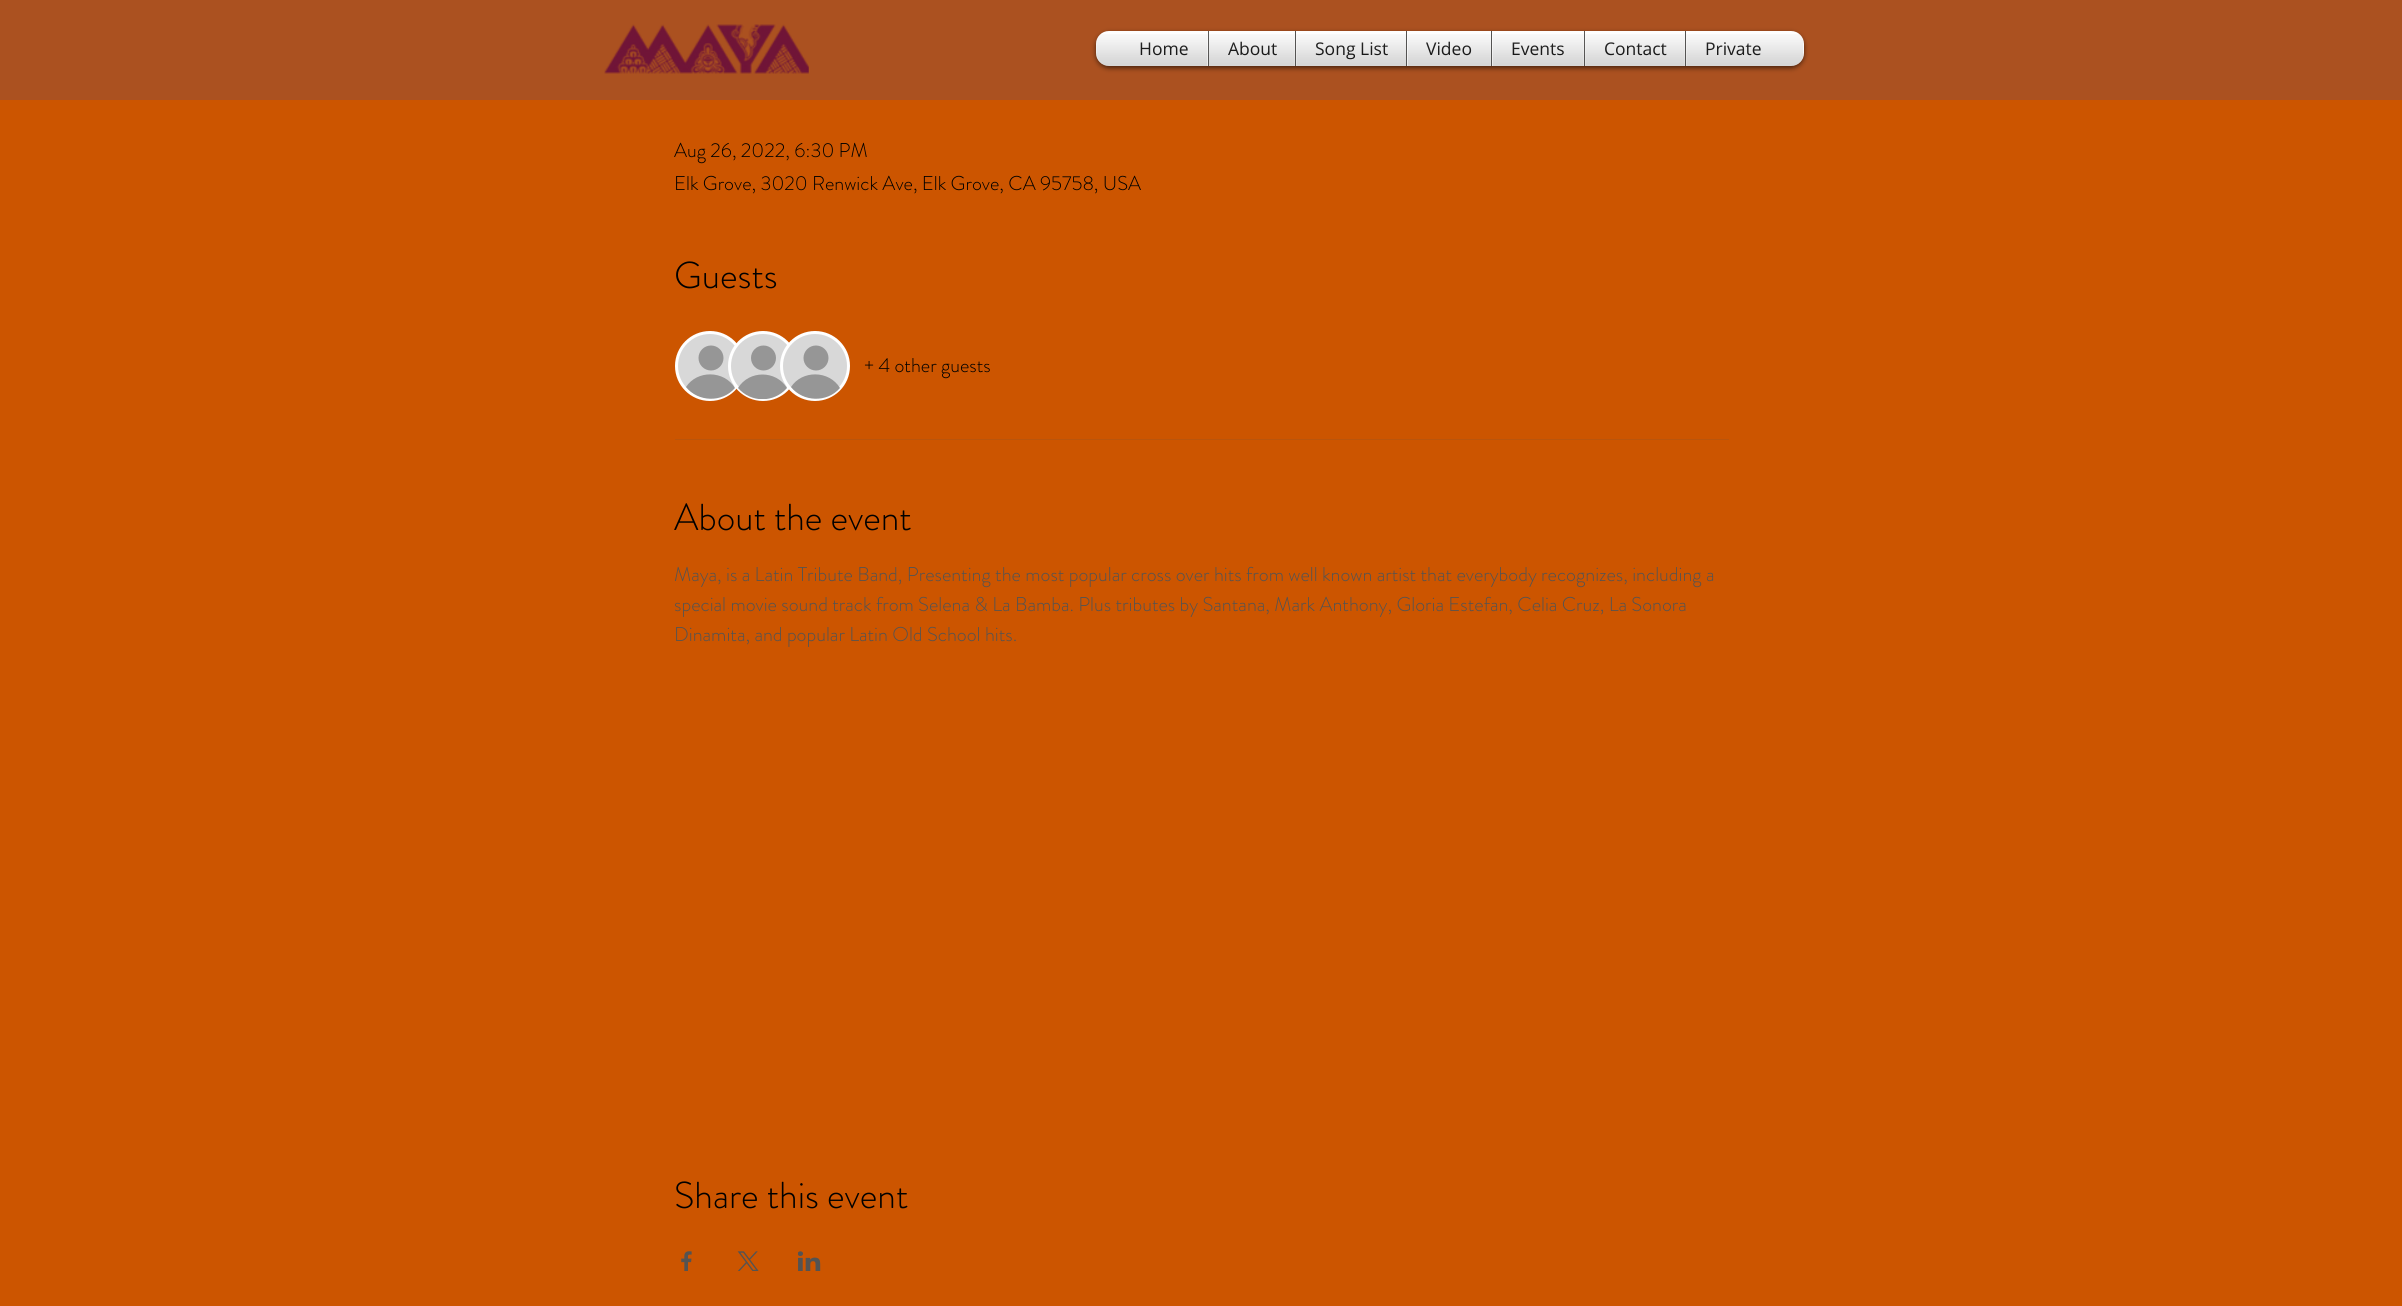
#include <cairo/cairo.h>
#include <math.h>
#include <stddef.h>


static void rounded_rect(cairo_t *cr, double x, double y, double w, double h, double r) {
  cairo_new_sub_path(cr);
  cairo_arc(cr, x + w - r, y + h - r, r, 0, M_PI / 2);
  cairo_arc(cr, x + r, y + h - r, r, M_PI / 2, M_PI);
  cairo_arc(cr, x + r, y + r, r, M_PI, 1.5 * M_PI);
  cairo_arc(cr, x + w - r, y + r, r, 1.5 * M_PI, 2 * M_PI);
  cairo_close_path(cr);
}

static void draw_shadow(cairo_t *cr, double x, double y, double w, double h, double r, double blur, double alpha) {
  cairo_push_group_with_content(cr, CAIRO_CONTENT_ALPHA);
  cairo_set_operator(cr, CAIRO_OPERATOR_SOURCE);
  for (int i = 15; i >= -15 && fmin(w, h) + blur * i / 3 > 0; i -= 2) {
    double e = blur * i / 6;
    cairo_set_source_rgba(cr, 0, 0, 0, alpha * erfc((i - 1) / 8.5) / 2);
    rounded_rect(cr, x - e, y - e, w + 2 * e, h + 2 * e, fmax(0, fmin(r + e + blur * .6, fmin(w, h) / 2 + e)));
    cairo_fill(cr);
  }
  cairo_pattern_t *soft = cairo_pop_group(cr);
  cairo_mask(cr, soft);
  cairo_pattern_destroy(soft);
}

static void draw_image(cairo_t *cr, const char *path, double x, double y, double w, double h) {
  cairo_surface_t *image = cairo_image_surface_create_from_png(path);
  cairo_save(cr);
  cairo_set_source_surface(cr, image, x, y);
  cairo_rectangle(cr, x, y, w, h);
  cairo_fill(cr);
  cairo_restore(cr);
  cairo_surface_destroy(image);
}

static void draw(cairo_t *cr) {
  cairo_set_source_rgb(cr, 204 / 255.0, 85 / 255.0, 0);
  cairo_paint(cr);
  cairo_set_source_rgb(cr, 171 / 255.0, 81 / 255.0, 32 / 255.0);
  cairo_rectangle(cr, 0, 0, 2402, 100);
  cairo_fill(cr);
  draw_image(cr, "images/1.png", 604, 24, 205, 50);
  cairo_set_source_rgb(cr, 0, 0, 0);
  draw_shadow(cr, 1096, 33, 708, 35, 13, 2.5, 0.6);
  cairo_set_source_rgb(cr, 1, 1, 1);
  rounded_rect(cr, 1096, 31, 708, 35, 13);
  cairo_fill(cr);
  draw_image(cr, "images/2.png", 1096, 31, 708, 29);
  draw_image(cr, "images/3.png", 1096, 34, 708, 32);
  cairo_rectangle(cr, 1120, 34, 88, 32);
  cairo_fill(cr);
  cairo_rectangle(cr, 1209, 34, 86, 32);
  cairo_fill(cr);
  cairo_set_source_rgb(cr, 84 / 255.0, 83 / 255.0, 82 / 255.0);
  cairo_rectangle(cr, 1208, 31, 1, 35);
  cairo_fill(cr);
  cairo_set_source_rgb(cr, 1, 1, 1);
  cairo_rectangle(cr, 1296, 34, 110, 32);
  cairo_fill(cr);
  cairo_set_source_rgb(cr, 84 / 255.0, 83 / 255.0, 82 / 255.0);
  cairo_rectangle(cr, 1295, 31, 1, 35);
  cairo_fill(cr);
  cairo_set_source_rgb(cr, 1, 1, 1);
  cairo_rectangle(cr, 1407, 34, 84, 32);
  cairo_fill(cr);
  cairo_set_source_rgb(cr, 84 / 255.0, 83 / 255.0, 82 / 255.0);
  cairo_rectangle(cr, 1406, 31, 1, 35);
  cairo_fill(cr);
  cairo_set_source_rgb(cr, 1, 1, 1);
  cairo_rectangle(cr, 1492, 34, 92, 32);
  cairo_fill(cr);
  cairo_set_source_rgb(cr, 84 / 255.0, 83 / 255.0, 82 / 255.0);
  cairo_rectangle(cr, 1491, 31, 1, 35);
  cairo_fill(cr);
  cairo_set_source_rgb(cr, 1, 1, 1);
  cairo_rectangle(cr, 1585, 34, 100, 32);
  cairo_fill(cr);
  cairo_set_source_rgb(cr, 84 / 255.0, 83 / 255.0, 82 / 255.0);
  cairo_rectangle(cr, 1584, 31, 1, 35);
  cairo_fill(cr);
  cairo_set_source_rgb(cr, 1, 1, 1);
  cairo_rectangle(cr, 1686, 34, 94, 32);
  cairo_fill(cr);
  cairo_set_source_rgb(cr, 84 / 255.0, 83 / 255.0, 82 / 255.0);
  cairo_rectangle(cr, 1685, 31, 1, 35);
  cairo_fill(cr);
  cairo_set_source_rgb(cr, 216 / 255.0, 216 / 255.0, 216 / 255.0);
  cairo_arc(cr, 710, 366, 33.5, 0, 2 * M_PI);
  cairo_fill_preserve(cr);
  cairo_set_source_rgb(cr, 1, 1, 1);
  cairo_set_line_width(cr, 3);
  cairo_stroke(cr);
  cairo_set_source_rgb(cr, 150 / 255.0, 150 / 255.0, 150 / 255.0);
  cairo_arc(cr, 711, 358, 12.5, 0, 2 * M_PI);
  cairo_fill(cr);
  cairo_new_path(cr);
  cairo_move_to(cr, 735, 388);
  cairo_curve_to(cr, 722, 403, 698, 402, 686, 387);
  cairo_curve_to(cr, 697, 370, 724, 370, 735, 388);
  cairo_close_path(cr);
  cairo_fill(cr);
  cairo_set_source_rgb(cr, 216 / 255.0, 216 / 255.0, 216 / 255.0);
  cairo_arc(cr, 763, 366, 33.5, 0, 2 * M_PI);
  cairo_fill_preserve(cr);
  cairo_set_source_rgb(cr, 1, 1, 1);
  cairo_stroke(cr);
  cairo_set_source_rgb(cr, 150 / 255.0, 150 / 255.0, 150 / 255.0);
  cairo_arc(cr, 763.5, 358, 12.5, 0, 2 * M_PI);
  cairo_fill(cr);
  cairo_save(cr);
  cairo_rectangle(cr, 730, 334, 65, 65);
  cairo_clip(cr);
  cairo_new_path(cr);
  cairo_move_to(cr, 787, 388);
  cairo_curve_to(cr, 774, 403, 751, 403, 738, 388);
  cairo_curve_to(cr, 749, 370, 776, 370, 787, 388);
  cairo_close_path(cr);
  cairo_fill(cr);
  cairo_restore(cr);
  cairo_set_source_rgb(cr, 216 / 255.0, 216 / 255.0, 216 / 255.0);
  cairo_arc(cr, 815, 366, 33.5, 0, 2 * M_PI);
  cairo_fill_preserve(cr);
  cairo_set_source_rgb(cr, 1, 1, 1);
  cairo_stroke(cr);
  cairo_set_source_rgb(cr, 150 / 255.0, 150 / 255.0, 150 / 255.0);
  cairo_arc(cr, 816, 358, 12.5, 0, 2 * M_PI);
  cairo_fill(cr);
  cairo_new_path(cr);
  cairo_move_to(cr, 840, 388);
  cairo_curve_to(cr, 827, 403, 803, 402, 791, 387);
  cairo_curve_to(cr, 802, 370, 829, 370, 840, 388);
  cairo_close_path(cr);
  cairo_fill(cr);
  cairo_set_source_rgb(cr, 186 / 255.0, 85 / 255.0, 12 / 255.0);
  cairo_rectangle(cr, 675, 439, 1054, 1);
  cairo_fill(cr);
  draw_image(cr, "images/18.png", 681, 1251, 11, 20);
  draw_image(cr, "images/19.png", 737, 1251, 22, 20);
  draw_image(cr, "images/20.png", 798, 1251, 23, 20);
  cairo_select_font_face(cr, "Open Sans", CAIRO_FONT_SLANT_NORMAL, CAIRO_FONT_WEIGHT_NORMAL);
  cairo_set_font_size(cr, 17.5);
  cairo_set_source_rgb(cr, 0, 0, 0);
  cairo_move_to(cr, 1139, 55);
  cairo_show_text(cr, "Home");
  draw_image(cr, "images/4.png", 1140, 42, 48, 13);
  draw_image(cr, "images/5.png", 1120, 34, 88, 32);
  cairo_move_to(cr, 1228, 55);
  cairo_show_text(cr, "About");
  draw_image(cr, "images/6.png", 1208, 31, 69, 24);
  draw_image(cr, "images/7.png", 1209, 34, 86, 32);
  cairo_move_to(cr, 1315, 55);
  cairo_show_text(cr, "Song List");
  draw_image(cr, "images/8.png", 1316, 42, 72, 17);
  draw_image(cr, "images/9.png", 1296, 34, 110, 32);
  cairo_move_to(cr, 1426, 55);
  cairo_show_text(cr, "Video");
  draw_image(cr, "images/10.png", 1426, 41, 46, 14);
  draw_image(cr, "images/11.png", 1407, 34, 84, 32);
  cairo_move_to(cr, 1511, 55);
  cairo_show_text(cr, "Events");
  draw_image(cr, "images/12.png", 1513, 42, 51, 13);
  draw_image(cr, "images/13.png", 1492, 34, 92, 32);
  cairo_move_to(cr, 1604, 55);
  cairo_show_text(cr, "Contact");
  draw_image(cr, "images/14.png", 1584, 31, 82, 24);
  draw_image(cr, "images/15.png", 1585, 34, 100, 32);
  cairo_move_to(cr, 1705, 55);
  cairo_show_text(cr, "Private");
  draw_image(cr, "images/16.png", 1706, 42, 55, 13);
  draw_image(cr, "images/17.png", 1686, 34, 94, 32);
  cairo_select_font_face(cr, "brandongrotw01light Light", CAIRO_FONT_SLANT_NORMAL, CAIRO_FONT_WEIGHT_NORMAL);
  cairo_set_font_size(cr, 20);
  cairo_move_to(cr, 674, 157);
  cairo_show_text(cr, "Aug 26, 2022, 6:30 PM");
  cairo_move_to(cr, 674, 190);
  cairo_show_text(cr, "Elk Grove, 3020 Renwick Ave, Elk Grove, CA 95758, USA");
  cairo_set_font_size(cr, 37.5);
  cairo_move_to(cr, 674, 288);
  cairo_show_text(cr, "Guests");
  cairo_set_font_size(cr, 20);
  cairo_move_to(cr, 864, 372);
  cairo_show_text(cr, "+ 4 other guests");
  cairo_set_font_size(cr, 37.5);
  cairo_move_to(cr, 674, 530);
  cairo_show_text(cr, "About the event");
  cairo_set_font_size(cr, 20);
  cairo_set_source_rgb(cr, 84 / 255.0, 83 / 255.0, 82 / 255.0);
  cairo_move_to(cr, 674, 581);
  cairo_show_text(cr, "Maya, is a Latin Tribute Band, Presenting the most popular cross over hits from well known artist that everybody recognizes, including a");
  cairo_move_to(cr, 674, 611);
  cairo_show_text(cr, "special movie sound track from Selena & La Bamba. Plus tributes by Santana, Mark Anthony, Gloria Estefan, Celia Cruz, La Sonora");
  cairo_move_to(cr, 674, 641);
  cairo_show_text(cr, "Dinamita, and popular Latin Old School hits.");
  cairo_set_font_size(cr, 37.5);
  cairo_set_source_rgb(cr, 0, 0, 0);
  cairo_move_to(cr, 674, 1208);
  cairo_show_text(cr, "Share this event");
}

int main(void) {
  cairo_surface_t *surface = cairo_image_surface_create(CAIRO_FORMAT_RGB24, 2402, 1306);
  cairo_t *cr = cairo_create(surface);
  cairo_font_options_t *options = cairo_font_options_create();
  cairo_font_options_set_hint_metrics(options, CAIRO_HINT_METRICS_OFF);
  cairo_font_options_set_hint_style(options, CAIRO_HINT_STYLE_NONE);
  cairo_set_font_options(cr, options);
  cairo_set_miter_limit(cr, 4);
  draw(cr);
  cairo_surface_write_to_png(surface, "out.png");
  cairo_font_options_destroy(options);
  cairo_destroy(cr);
  cairo_surface_destroy(surface);
  return 0;
}
